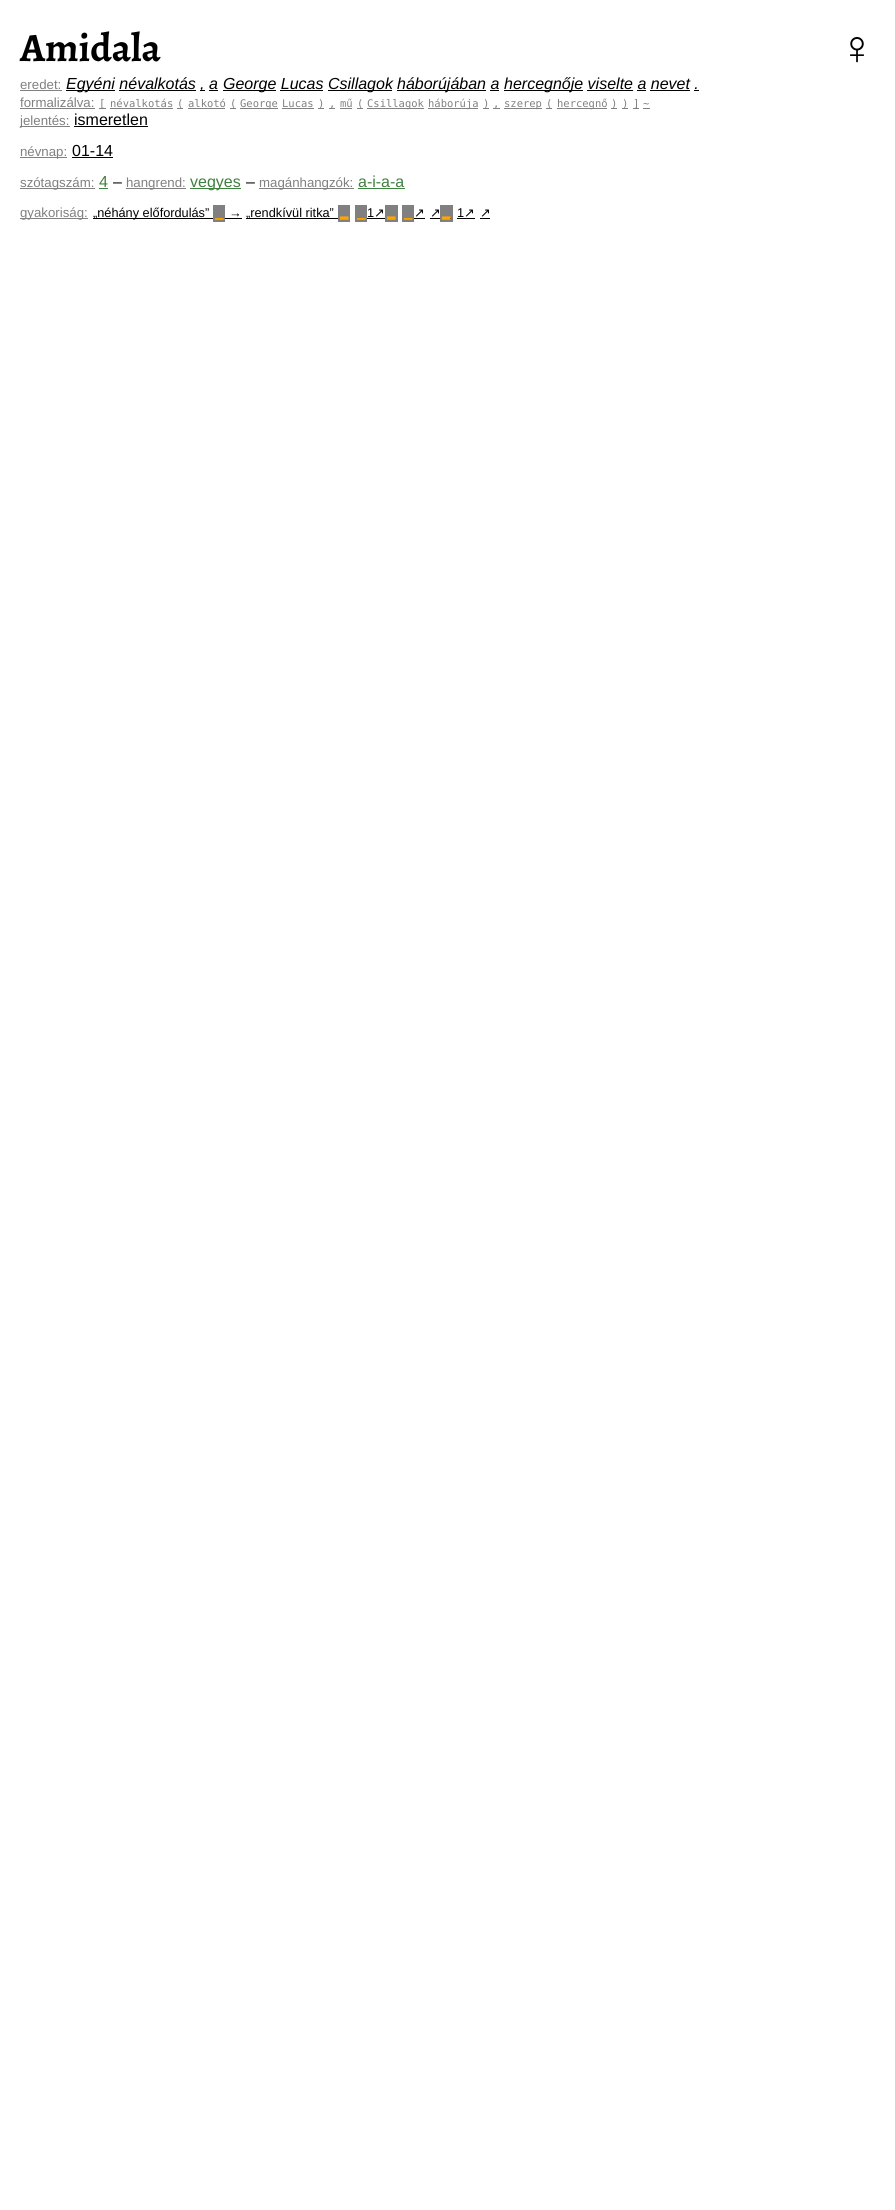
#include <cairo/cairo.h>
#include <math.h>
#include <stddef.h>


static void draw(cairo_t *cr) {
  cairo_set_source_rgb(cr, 1, 1, 1);
  cairo_paint(cr);
  cairo_set_source_rgb(cr, 128 / 255.0, 128 / 255.0, 128 / 255.0);
  cairo_rectangle(cr, 20, 90, 42, 1);
  cairo_fill(cr);
  cairo_set_source_rgb(cr, 0, 0, 0);
  cairo_rectangle(cr, 66, 90, 49, 1);
  cairo_fill(cr);
  cairo_rectangle(cr, 200, 90, 5, 1);
  cairo_fill(cr);
  cairo_rectangle(cr, 223, 90, 53, 1);
  cairo_fill(cr);
  cairo_rectangle(cr, 328, 90, 64, 1);
  cairo_fill(cr);
  cairo_rectangle(cr, 397, 90, 89, 1);
  cairo_fill(cr);
  cairo_rectangle(cr, 504, 90, 79, 1);
  cairo_fill(cr);
  cairo_rectangle(cr, 119, 90, 77, 1);
  cairo_fill(cr);
  cairo_rectangle(cr, 209, 90, 9, 1);
  cairo_fill(cr);
  cairo_rectangle(cr, 280, 90, 43, 1);
  cairo_fill(cr);
  cairo_rectangle(cr, 490, 90, 9, 1);
  cairo_fill(cr);
  cairo_rectangle(cr, 587, 90, 46, 1);
  cairo_fill(cr);
  cairo_rectangle(cr, 637, 90, 9, 1);
  cairo_fill(cr);
  cairo_rectangle(cr, 650, 90, 40, 1);
  cairo_fill(cr);
  cairo_rectangle(cr, 694, 90, 5, 1);
  cairo_fill(cr);
  cairo_set_source_rgb(cr, 128 / 255.0, 128 / 255.0, 128 / 255.0);
  cairo_rectangle(cr, 20, 108, 75, 1);
  cairo_fill(cr);
  cairo_rectangle(cr, 99, 108, 7, 1);
  cairo_fill(cr);
  cairo_rectangle(cr, 110, 108, 63, 1);
  cairo_fill(cr);
  cairo_rectangle(cr, 177, 108, 6, 1);
  cairo_fill(cr);
  cairo_rectangle(cr, 188, 108, 37, 1);
  cairo_fill(cr);
  cairo_rectangle(cr, 230, 108, 6, 1);
  cairo_fill(cr);
  cairo_rectangle(cr, 240, 108, 38, 1);
  cairo_fill(cr);
  cairo_rectangle(cr, 282, 108, 32, 1);
  cairo_fill(cr);
  cairo_rectangle(cr, 318, 108, 6, 1);
  cairo_fill(cr);
  cairo_rectangle(cr, 340, 108, 12, 1);
  cairo_fill(cr);
  cairo_rectangle(cr, 357, 108, 6, 1);
  cairo_fill(cr);
  cairo_rectangle(cr, 367, 108, 57, 1);
  cairo_fill(cr);
  cairo_rectangle(cr, 428, 108, 50, 1);
  cairo_fill(cr);
  cairo_rectangle(cr, 483, 108, 6, 1);
  cairo_fill(cr);
  cairo_rectangle(cr, 504, 108, 38, 1);
  cairo_fill(cr);
  cairo_rectangle(cr, 546, 108, 6, 1);
  cairo_fill(cr);
  cairo_rectangle(cr, 557, 108, 50, 1);
  cairo_fill(cr);
  cairo_rectangle(cr, 611, 108, 6, 1);
  cairo_fill(cr);
  cairo_rectangle(cr, 622, 108, 6, 1);
  cairo_fill(cr);
  cairo_rectangle(cr, 633, 108, 6, 1);
  cairo_fill(cr);
  cairo_rectangle(cr, 643, 108, 7, 1);
  cairo_fill(cr);
  cairo_rectangle(cr, 329, 108, 6, 1);
  cairo_fill(cr);
  cairo_rectangle(cr, 493, 108, 7, 1);
  cairo_fill(cr);
  cairo_rectangle(cr, 20, 126, 50, 1);
  cairo_fill(cr);
  cairo_set_source_rgb(cr, 0, 0, 0);
  cairo_rectangle(cr, 74, 126, 74, 1);
  cairo_fill(cr);
  cairo_set_source_rgb(cr, 128 / 255.0, 128 / 255.0, 128 / 255.0);
  cairo_rectangle(cr, 20, 157, 47, 1);
  cairo_fill(cr);
  cairo_set_source_rgb(cr, 0, 0, 0);
  cairo_rectangle(cr, 72, 157, 41, 1);
  cairo_fill(cr);
  cairo_set_source_rgb(cr, 128 / 255.0, 128 / 255.0, 128 / 255.0);
  cairo_rectangle(cr, 20, 188, 75, 1);
  cairo_fill(cr);
  cairo_set_source_rgb(cr, 64 / 255.0, 128 / 255.0, 64 / 255.0);
  cairo_rectangle(cr, 99, 188, 9, 1);
  cairo_fill(cr);
  cairo_set_source_rgb(cr, 128 / 255.0, 128 / 255.0, 128 / 255.0);
  cairo_rectangle(cr, 126, 188, 60, 1);
  cairo_fill(cr);
  cairo_set_source_rgb(cr, 64 / 255.0, 128 / 255.0, 64 / 255.0);
  cairo_rectangle(cr, 190, 188, 51, 1);
  cairo_fill(cr);
  cairo_set_source_rgb(cr, 128 / 255.0, 128 / 255.0, 128 / 255.0);
  cairo_rectangle(cr, 259, 188, 95, 1);
  cairo_fill(cr);
  cairo_set_source_rgb(cr, 64 / 255.0, 128 / 255.0, 64 / 255.0);
  cairo_rectangle(cr, 358, 188, 47, 1);
  cairo_fill(cr);
  cairo_set_source_rgb(cr, 128 / 255.0, 128 / 255.0, 128 / 255.0);
  cairo_rectangle(cr, 20, 218, 68, 1);
  cairo_fill(cr);
  cairo_rectangle(cr, 213, 205, 12, 17);
  cairo_fill(cr);
  cairo_rectangle(cr, 338, 205, 12, 17);
  cairo_fill(cr);
  cairo_rectangle(cr, 355, 205, 12, 17);
  cairo_fill(cr);
  cairo_rectangle(cr, 385, 205, 13, 17);
  cairo_fill(cr);
  cairo_rectangle(cr, 402, 205, 12, 17);
  cairo_fill(cr);
  cairo_rectangle(cr, 440, 205, 13, 17);
  cairo_fill(cr);
  cairo_set_source_rgb(cr, 0, 0, 0);
  cairo_rectangle(cr, 457, 218, 18, 1);
  cairo_fill(cr);
  cairo_rectangle(cr, 480, 218, 10, 1);
  cairo_fill(cr);
  cairo_rectangle(cr, 93, 218, 120, 1);
  cairo_fill(cr);
  cairo_rectangle(cr, 215, 218, 8, 1);
  cairo_fill(cr);
  cairo_rectangle(cr, 225, 218, 17, 1);
  cairo_fill(cr);
  cairo_rectangle(cr, 246, 218, 92, 1);
  cairo_fill(cr);
  cairo_rectangle(cr, 340, 218, 8, 1);
  cairo_fill(cr);
  cairo_rectangle(cr, 357, 218, 8, 1);
  cairo_fill(cr);
  cairo_rectangle(cr, 367, 218, 18, 1);
  cairo_fill(cr);
  cairo_rectangle(cr, 387, 218, 8, 1);
  cairo_fill(cr);
  cairo_rectangle(cr, 404, 218, 8, 1);
  cairo_fill(cr);
  cairo_rectangle(cr, 414, 218, 11, 1);
  cairo_fill(cr);
  cairo_rectangle(cr, 430, 218, 10, 1);
  cairo_fill(cr);
  cairo_rectangle(cr, 442, 218, 9, 1);
  cairo_fill(cr);
  cairo_select_font_face(cr, "Alegreya", CAIRO_FONT_SLANT_NORMAL, CAIRO_FONT_WEIGHT_BOLD);
  cairo_set_font_size(cr, 40);
  cairo_move_to(cr, 20, 61);
  cairo_show_text(cr, "Amidala");
  cairo_select_font_face(cr, "Liberation Sans", CAIRO_FONT_SLANT_NORMAL, CAIRO_FONT_WEIGHT_BOLD);
  cairo_set_font_size(cr, 48);
  cairo_move_to(cr, 839, 64);
  cairo_show_text(cr, "♀");
  cairo_select_font_face(cr, "Liberation Sans", CAIRO_FONT_SLANT_NORMAL, CAIRO_FONT_WEIGHT_NORMAL);
  cairo_set_font_size(cr, 13.25);
  cairo_set_source_rgb(cr, 128 / 255.0, 128 / 255.0, 128 / 255.0);
  cairo_move_to(cr, 20, 89);
  cairo_show_text(cr, "eredet:");
  cairo_select_font_face(cr, "Liberation Sans", CAIRO_FONT_SLANT_ITALIC, CAIRO_FONT_WEIGHT_NORMAL);
  cairo_set_font_size(cr, 16);
  cairo_set_source_rgb(cr, 0, 0, 0);
  cairo_move_to(cr, 66, 89);
  cairo_show_text(cr, "Egyéni névalkotás");
  cairo_move_to(cr, 200, 89);
  cairo_show_text(cr, ", a");
  cairo_move_to(cr, 223, 89);
  cairo_show_text(cr, "George Lucas");
  cairo_move_to(cr, 328, 89);
  cairo_show_text(cr, "Csillagok");
  cairo_move_to(cr, 397, 89);
  cairo_show_text(cr, "háborújában a");
  cairo_move_to(cr, 504, 89);
  cairo_show_text(cr, "hercegnője viselte a nevet .");
  cairo_select_font_face(cr, "Liberation Sans", CAIRO_FONT_SLANT_NORMAL, CAIRO_FONT_WEIGHT_NORMAL);
  cairo_set_font_size(cr, 13.25);
  cairo_set_source_rgb(cr, 128 / 255.0, 128 / 255.0, 128 / 255.0);
  cairo_move_to(cr, 20, 107);
  cairo_show_text(cr, "formalizálva:");
  cairo_select_font_face(cr, "DejaVu Sans Mono", CAIRO_FONT_SLANT_NORMAL, CAIRO_FONT_WEIGHT_NORMAL);
  cairo_set_font_size(cr, 10.5);
  cairo_move_to(cr, 99, 107);
  cairo_show_text(cr, "[");
  cairo_move_to(cr, 110, 107);
  cairo_show_text(cr, "névalkotás");
  cairo_move_to(cr, 177, 107);
  cairo_show_text(cr, "(");
  cairo_move_to(cr, 188, 107);
  cairo_show_text(cr, "alkotó");
  cairo_move_to(cr, 230, 107);
  cairo_show_text(cr, "(");
  cairo_move_to(cr, 240, 107);
  cairo_show_text(cr, "George");
  cairo_move_to(cr, 282, 107);
  cairo_show_text(cr, "Lucas");
  cairo_move_to(cr, 318, 107);
  cairo_show_text(cr, ")");
  cairo_move_to(cr, 340, 107);
  cairo_show_text(cr, "mű");
  cairo_move_to(cr, 357, 107);
  cairo_show_text(cr, "(");
  cairo_move_to(cr, 367, 107);
  cairo_show_text(cr, "Csillagok");
  cairo_move_to(cr, 428, 107);
  cairo_show_text(cr, "háborúja");
  cairo_move_to(cr, 483, 107);
  cairo_show_text(cr, ")");
  cairo_move_to(cr, 504, 107);
  cairo_show_text(cr, "szerep");
  cairo_move_to(cr, 546, 107);
  cairo_show_text(cr, "(");
  cairo_move_to(cr, 557, 107);
  cairo_show_text(cr, "hercegnő");
  cairo_move_to(cr, 611, 107);
  cairo_show_text(cr, ")");
  cairo_move_to(cr, 622, 107);
  cairo_show_text(cr, ")");
  cairo_move_to(cr, 633, 107);
  cairo_show_text(cr, "]");
  cairo_move_to(cr, 643, 107);
  cairo_show_text(cr, "~");
  cairo_move_to(cr, 329, 107);
  cairo_show_text(cr, ",");
  cairo_move_to(cr, 493, 107);
  cairo_show_text(cr, ",");
  cairo_select_font_face(cr, "Liberation Sans", CAIRO_FONT_SLANT_NORMAL, CAIRO_FONT_WEIGHT_NORMAL);
  cairo_set_font_size(cr, 13.25);
  cairo_move_to(cr, 20, 125);
  cairo_show_text(cr, "jelentés:");
  cairo_set_font_size(cr, 16);
  cairo_set_source_rgb(cr, 0, 0, 0);
  cairo_move_to(cr, 74, 125);
  cairo_show_text(cr, "ismeretlen");
  cairo_set_font_size(cr, 13.25);
  cairo_set_source_rgb(cr, 128 / 255.0, 128 / 255.0, 128 / 255.0);
  cairo_move_to(cr, 20, 156);
  cairo_show_text(cr, "névnap:");
  cairo_set_font_size(cr, 16);
  cairo_set_source_rgb(cr, 0, 0, 0);
  cairo_move_to(cr, 72, 156);
  cairo_show_text(cr, "01-14");
  cairo_set_font_size(cr, 13.25);
  cairo_set_source_rgb(cr, 128 / 255.0, 128 / 255.0, 128 / 255.0);
  cairo_move_to(cr, 20, 187);
  cairo_show_text(cr, "szótagszám:");
  cairo_set_font_size(cr, 16);
  cairo_set_source_rgb(cr, 64 / 255.0, 128 / 255.0, 64 / 255.0);
  cairo_move_to(cr, 99, 187);
  cairo_show_text(cr, "4");
  cairo_set_source_rgb(cr, 0, 0, 0);
  cairo_move_to(cr, 113, 187);
  cairo_show_text(cr, "–");
  cairo_set_font_size(cr, 13.25);
  cairo_set_source_rgb(cr, 128 / 255.0, 128 / 255.0, 128 / 255.0);
  cairo_move_to(cr, 126, 187);
  cairo_show_text(cr, "hangrend:");
  cairo_set_font_size(cr, 16);
  cairo_set_source_rgb(cr, 64 / 255.0, 128 / 255.0, 64 / 255.0);
  cairo_move_to(cr, 190, 187);
  cairo_show_text(cr, "vegyes");
  cairo_set_source_rgb(cr, 0, 0, 0);
  cairo_move_to(cr, 246, 187);
  cairo_show_text(cr, "–");
  cairo_set_font_size(cr, 13.25);
  cairo_set_source_rgb(cr, 128 / 255.0, 128 / 255.0, 128 / 255.0);
  cairo_move_to(cr, 259, 187);
  cairo_show_text(cr, "magánhangzók:");
  cairo_set_font_size(cr, 16);
  cairo_set_source_rgb(cr, 64 / 255.0, 128 / 255.0, 64 / 255.0);
  cairo_move_to(cr, 358, 187);
  cairo_show_text(cr, "a-i-a-a");
  cairo_set_font_size(cr, 13.25);
  cairo_set_source_rgb(cr, 128 / 255.0, 128 / 255.0, 128 / 255.0);
  cairo_move_to(cr, 20, 217);
  cairo_show_text(cr, "gyakoriság:");
  cairo_set_font_size(cr, 12.75);
  cairo_set_source_rgb(cr, 0, 0, 0);
  cairo_move_to(cr, 93, 217);
  cairo_show_text(cr, "„néhány előfordulás”");
  cairo_move_to(cr, 229, 217);
  cairo_show_text(cr, "→");
  cairo_move_to(cr, 246, 217);
  cairo_show_text(cr, "„rendkívül ritka”");
  cairo_move_to(cr, 367, 217);
  cairo_show_text(cr, "1");
  cairo_select_font_face(cr, "DejaVu Sans", CAIRO_FONT_SLANT_NORMAL, CAIRO_FONT_WEIGHT_NORMAL);
  cairo_move_to(cr, 374, 217);
  cairo_show_text(cr, "↗");
  cairo_move_to(cr, 414, 217);
  cairo_show_text(cr, "↗");
  cairo_move_to(cr, 430, 217);
  cairo_show_text(cr, "↗");
  cairo_select_font_face(cr, "Liberation Sans", CAIRO_FONT_SLANT_NORMAL, CAIRO_FONT_WEIGHT_NORMAL);
  cairo_move_to(cr, 457, 217);
  cairo_show_text(cr, "1");
  cairo_select_font_face(cr, "DejaVu Sans", CAIRO_FONT_SLANT_NORMAL, CAIRO_FONT_WEIGHT_NORMAL);
  cairo_move_to(cr, 464, 217);
  cairo_show_text(cr, "↗");
  cairo_move_to(cr, 480, 217);
  cairo_show_text(cr, "↗");
  cairo_set_font_size(cr, 11);
  cairo_set_source_rgb(cr, 1, 165 / 255.0, 0);
  cairo_move_to(cr, 215, 217);
  cairo_show_text(cr, "▁");
  cairo_move_to(cr, 340, 217);
  cairo_show_text(cr, "▂");
  cairo_move_to(cr, 357, 217);
  cairo_show_text(cr, "▁");
  cairo_move_to(cr, 387, 217);
  cairo_show_text(cr, "▂");
  cairo_move_to(cr, 404, 217);
  cairo_show_text(cr, "▁");
  cairo_move_to(cr, 442, 217);
  cairo_show_text(cr, "▂");
}

int main(void) {
  cairo_surface_t *surface = cairo_image_surface_create(CAIRO_FORMAT_RGB24, 895, 2210);
  cairo_t *cr = cairo_create(surface);
  cairo_font_options_t *options = cairo_font_options_create();
  cairo_font_options_set_hint_metrics(options, CAIRO_HINT_METRICS_OFF);
  cairo_font_options_set_hint_style(options, CAIRO_HINT_STYLE_NONE);
  cairo_set_font_options(cr, options);
  cairo_set_miter_limit(cr, 4);
  draw(cr);
  cairo_surface_write_to_png(surface, "out.png");
  cairo_font_options_destroy(options);
  cairo_destroy(cr);
  cairo_surface_destroy(surface);
  return 0;
}
